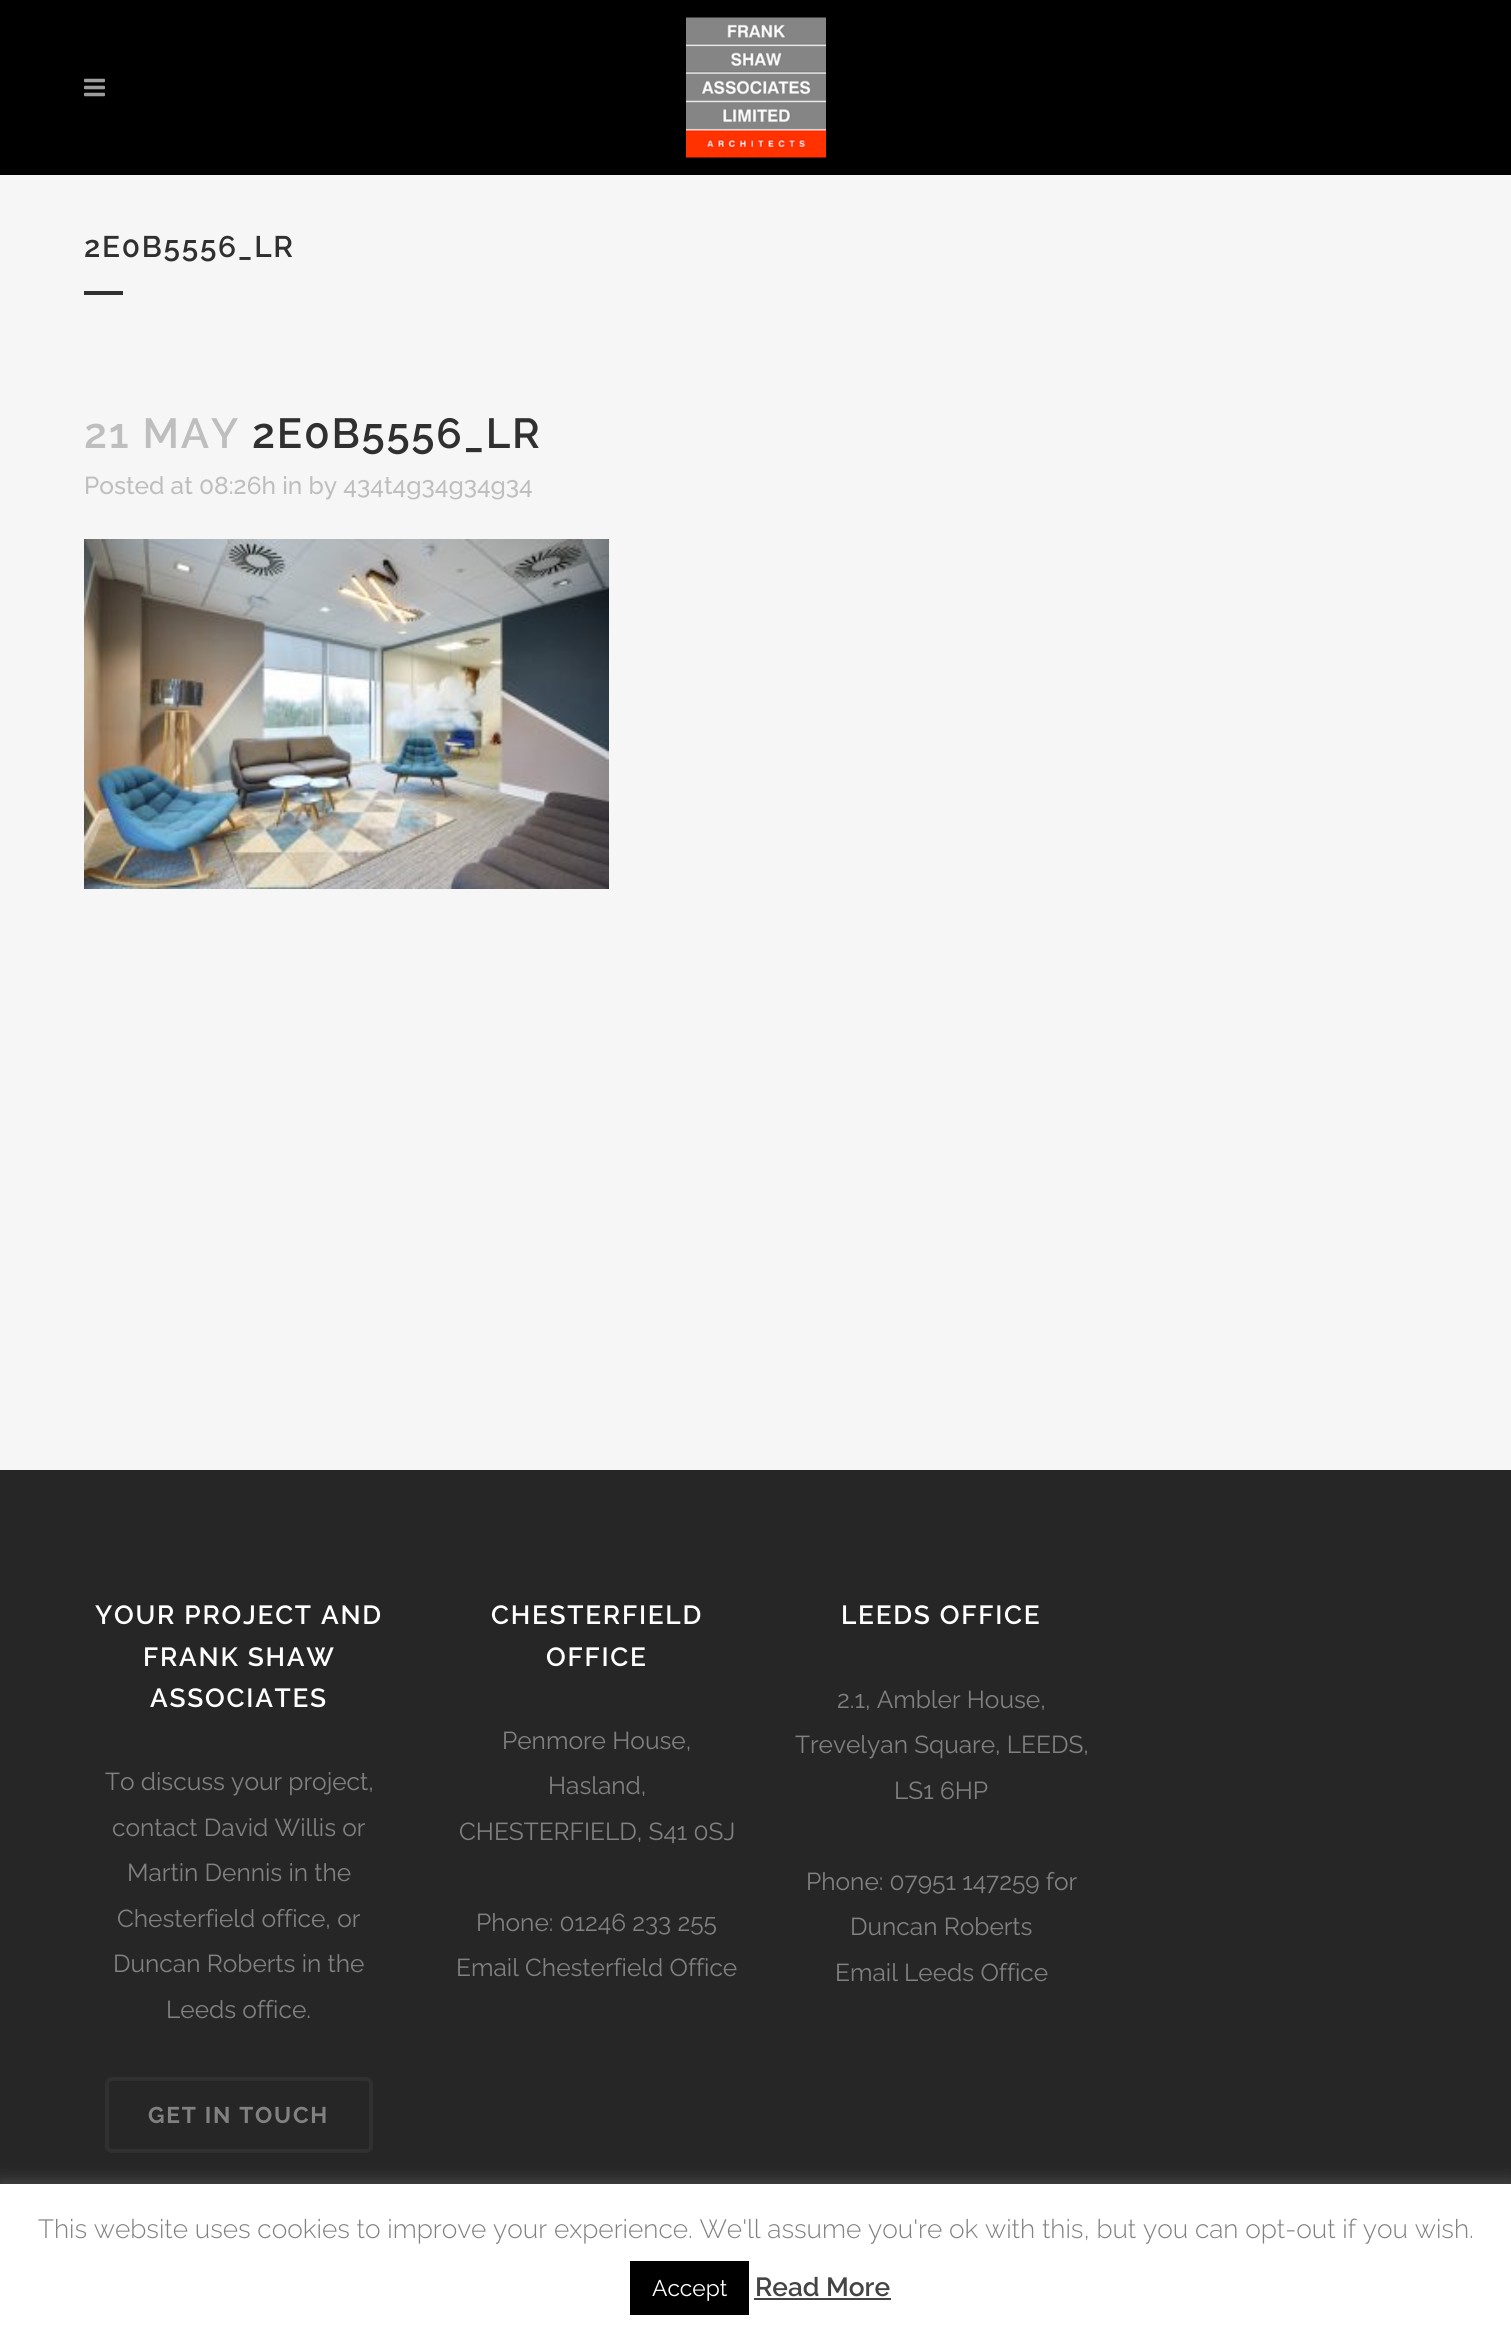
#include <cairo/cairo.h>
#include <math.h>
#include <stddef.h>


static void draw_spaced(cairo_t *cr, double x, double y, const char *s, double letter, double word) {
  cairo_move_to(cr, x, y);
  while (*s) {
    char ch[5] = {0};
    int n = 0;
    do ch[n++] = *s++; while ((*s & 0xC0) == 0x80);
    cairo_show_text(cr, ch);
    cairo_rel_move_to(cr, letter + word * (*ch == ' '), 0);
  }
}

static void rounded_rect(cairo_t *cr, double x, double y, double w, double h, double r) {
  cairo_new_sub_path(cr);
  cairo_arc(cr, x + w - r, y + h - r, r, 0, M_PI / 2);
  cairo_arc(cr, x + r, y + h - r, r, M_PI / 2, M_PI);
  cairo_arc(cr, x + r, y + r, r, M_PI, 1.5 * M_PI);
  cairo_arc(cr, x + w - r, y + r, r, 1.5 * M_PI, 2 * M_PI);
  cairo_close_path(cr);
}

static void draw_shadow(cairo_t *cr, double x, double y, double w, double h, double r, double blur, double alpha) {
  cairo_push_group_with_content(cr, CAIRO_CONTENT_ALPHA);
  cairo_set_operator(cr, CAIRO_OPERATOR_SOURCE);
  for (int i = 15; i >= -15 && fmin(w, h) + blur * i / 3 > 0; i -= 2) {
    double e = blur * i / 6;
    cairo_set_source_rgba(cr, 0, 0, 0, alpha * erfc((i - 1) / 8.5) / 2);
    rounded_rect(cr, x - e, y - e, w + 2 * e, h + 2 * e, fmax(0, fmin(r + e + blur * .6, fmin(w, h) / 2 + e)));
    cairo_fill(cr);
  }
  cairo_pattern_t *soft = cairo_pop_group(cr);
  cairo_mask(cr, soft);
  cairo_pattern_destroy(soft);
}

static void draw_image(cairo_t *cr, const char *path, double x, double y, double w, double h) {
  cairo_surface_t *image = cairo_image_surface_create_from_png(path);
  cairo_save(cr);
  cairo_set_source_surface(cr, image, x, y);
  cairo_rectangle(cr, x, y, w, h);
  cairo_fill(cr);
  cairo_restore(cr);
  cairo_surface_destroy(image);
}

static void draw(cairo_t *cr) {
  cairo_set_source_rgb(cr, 246 / 255.0, 246 / 255.0, 246 / 255.0);
  cairo_paint(cr);
  cairo_set_source_rgb(cr, 0, 0, 0);
  cairo_rectangle(cr, 0, 0, 1511, 175);
  cairo_fill(cr);
  draw_image(cr, "images/1.png", 84, 78, 21, 19);
  draw_image(cr, "images/2.png", 686, 17, 140, 141);
  cairo_set_source_rgb(cr, 48 / 255.0, 48 / 255.0, 48 / 255.0);
  cairo_rectangle(cr, 84, 291, 39, 4);
  cairo_fill(cr);
  draw_image(cr, "images/3.png", 84, 539, 525, 350);
  cairo_set_source_rgb(cr, 38 / 255.0, 38 / 255.0, 38 / 255.0);
  cairo_rectangle(cr, 0, 1470, 1511, 714);
  cairo_fill(cr);
  rounded_rect(cr, 107, 2079, 264, 72, 5);
  cairo_set_source_rgb(cr, 48 / 255.0, 48 / 255.0, 48 / 255.0);
  cairo_set_line_width(cr, 4);
  cairo_stroke(cr);
  cairo_set_source_rgb(cr, 172 / 255.0, 171 / 255.0, 171 / 255.0);
  draw_shadow(cr, 0, 2182, 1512, 153, 0, 9, 0.3);
  cairo_set_source_rgb(cr, 1, 1, 1);
  cairo_rectangle(cr, 0, 2184, 1511, 152);
  cairo_fill(cr);
  cairo_set_source_rgb(cr, 0, 0, 0);
  cairo_rectangle(cr, 630, 2261, 119, 54);
  cairo_fill(cr);
  cairo_set_source_rgb(cr, 68 / 255.0, 68 / 255.0, 68 / 255.0);
  cairo_rectangle(cr, 754, 2298, 137, 2);
  cairo_fill(cr);
  cairo_select_font_face(cr, "Raleway SemiBold", CAIRO_FONT_SLANT_NORMAL, CAIRO_FONT_WEIGHT_NORMAL);
  cairo_set_font_size(cr, 29.75);
  cairo_set_source_rgb(cr, 48 / 255.0, 48 / 255.0, 48 / 255.0);
  draw_spaced(cr, 84, 257, "2E0B5556_LR", 1.75, 0);
  cairo_set_font_size(cr, 42);
  cairo_set_source_rgb(cr, 190 / 255.0, 190 / 255.0, 190 / 255.0);
  draw_spaced(cr, 84, 448, "21 MAY", 1.75, 0);
  cairo_set_source_rgb(cr, 48 / 255.0, 48 / 255.0, 48 / 255.0);
  draw_spaced(cr, 252, 448, "2E0B5556_LR", 1.75, 0);
  cairo_select_font_face(cr, "Raleway Medium", CAIRO_FONT_SLANT_NORMAL, CAIRO_FONT_WEIGHT_NORMAL);
  cairo_set_font_size(cr, 24.5);
  cairo_set_source_rgb(cr, 190 / 255.0, 190 / 255.0, 190 / 255.0);
  cairo_move_to(cr, 84, 494);
  cairo_show_text(cr, "Posted at 08:26h in by 434t4g34g34g34");
  cairo_select_font_face(cr, "Raleway SemiBold", CAIRO_FONT_SLANT_NORMAL, CAIRO_FONT_WEIGHT_NORMAL);
  cairo_set_font_size(cr, 26.25);
  cairo_set_source_rgb(cr, 1, 1, 1);
  draw_spaced(cr, 95, 1624, "YOUR PROJECT AND", 1.75, 0);
  draw_spaced(cr, 143, 1666, "FRANK SHAW", 1.75, 0);
  draw_spaced(cr, 150, 1707, "ASSOCIATES", 1.75, 0);
  cairo_select_font_face(cr, "Raleway", CAIRO_FONT_SLANT_NORMAL, CAIRO_FONT_WEIGHT_NORMAL);
  cairo_set_font_size(cr, 24.5);
  cairo_set_source_rgb(cr, 129 / 255.0, 129 / 255.0, 129 / 255.0);
  cairo_move_to(cr, 105, 1790);
  cairo_show_text(cr, "To discuss your project,");
  cairo_move_to(cr, 112, 1836);
  cairo_show_text(cr, "contact David Willis or");
  cairo_move_to(cr, 127, 1881);
  cairo_show_text(cr, "Martin Dennis in the");
  cairo_move_to(cr, 117, 1927);
  cairo_show_text(cr, "Chesterfield office, or");
  cairo_move_to(cr, 113, 1972);
  cairo_show_text(cr, "Duncan Roberts in the");
  cairo_move_to(cr, 166, 2018);
  cairo_show_text(cr, "Leeds office.");
  cairo_select_font_face(cr, "Raleway", CAIRO_FONT_SLANT_NORMAL, CAIRO_FONT_WEIGHT_BOLD);
  cairo_set_font_size(cr, 22.75);
  draw_spaced(cr, 148, 2123, "GET IN TOUCH", 1.75, 0);
  cairo_select_font_face(cr, "Raleway SemiBold", CAIRO_FONT_SLANT_NORMAL, CAIRO_FONT_WEIGHT_NORMAL);
  cairo_set_font_size(cr, 26.25);
  cairo_set_source_rgb(cr, 1, 1, 1);
  draw_spaced(cr, 491, 1624, "CHESTERFIELD", 1.75, 0);
  draw_spaced(cr, 546, 1666, "OFFICE", 1.75, 0);
  cairo_select_font_face(cr, "Raleway", CAIRO_FONT_SLANT_NORMAL, CAIRO_FONT_WEIGHT_NORMAL);
  cairo_set_font_size(cr, 24.5);
  cairo_set_source_rgb(cr, 129 / 255.0, 129 / 255.0, 129 / 255.0);
  cairo_move_to(cr, 502, 1749);
  cairo_show_text(cr, "Penmore House,");
  cairo_move_to(cr, 548, 1794);
  cairo_show_text(cr, "Hasland,");
  cairo_move_to(cr, 459, 1840);
  cairo_show_text(cr, "CHESTERFIELD, S41 0SJ");
  cairo_move_to(cr, 476, 1931);
  cairo_show_text(cr, "Phone: 01246 233 255");
  cairo_move_to(cr, 456, 1976);
  cairo_show_text(cr, "Email Chesterfield Office");
  cairo_select_font_face(cr, "Raleway SemiBold", CAIRO_FONT_SLANT_NORMAL, CAIRO_FONT_WEIGHT_NORMAL);
  cairo_set_font_size(cr, 26.25);
  cairo_set_source_rgb(cr, 1, 1, 1);
  draw_spaced(cr, 841, 1624, "LEEDS OFFICE", 1.75, 0);
  cairo_select_font_face(cr, "Raleway", CAIRO_FONT_SLANT_NORMAL, CAIRO_FONT_WEIGHT_NORMAL);
  cairo_set_font_size(cr, 24.5);
  cairo_set_source_rgb(cr, 129 / 255.0, 129 / 255.0, 129 / 255.0);
  cairo_move_to(cr, 837, 1708);
  cairo_show_text(cr, "2.1, Ambler House,");
  cairo_move_to(cr, 795, 1753);
  cairo_show_text(cr, "Trevelyan Square, LEEDS,");
  cairo_move_to(cr, 894, 1799);
  cairo_show_text(cr, "LS1 6HP");
  cairo_move_to(cr, 806, 1890);
  cairo_show_text(cr, "Phone: 07951 147259 for");
  cairo_move_to(cr, 850, 1935);
  cairo_show_text(cr, "Duncan Roberts");
  cairo_move_to(cr, 835, 1981);
  cairo_show_text(cr, "Email Leeds Office");
  cairo_select_font_face(cr, "Raleway Light", CAIRO_FONT_SLANT_NORMAL, CAIRO_FONT_WEIGHT_NORMAL);
  cairo_set_font_size(cr, 26.25);
  cairo_move_to(cr, 38, 2238);
  cairo_show_text(cr, "This website uses cookies to improve your experience. We'll assume you're ok with this, but you can opt-out if you wish.");
  cairo_select_font_face(cr, "Raleway", CAIRO_FONT_SLANT_NORMAL, CAIRO_FONT_WEIGHT_NORMAL);
  cairo_set_font_size(cr, 22.75);
  cairo_set_source_rgb(cr, 1, 1, 1);
  cairo_move_to(cr, 652, 2296);
  cairo_show_text(cr, "Accept");
  cairo_select_font_face(cr, "Raleway SemiBold", CAIRO_FONT_SLANT_NORMAL, CAIRO_FONT_WEIGHT_NORMAL);
  cairo_set_font_size(cr, 26.25);
  cairo_set_source_rgb(cr, 68 / 255.0, 68 / 255.0, 68 / 255.0);
  cairo_move_to(cr, 755, 2296);
  cairo_show_text(cr, "Read More");
}

int main(void) {
  cairo_surface_t *surface = cairo_image_surface_create(CAIRO_FORMAT_RGB24, 1511, 2336);
  cairo_t *cr = cairo_create(surface);
  cairo_font_options_t *options = cairo_font_options_create();
  cairo_font_options_set_hint_metrics(options, CAIRO_HINT_METRICS_OFF);
  cairo_font_options_set_hint_style(options, CAIRO_HINT_STYLE_NONE);
  cairo_set_font_options(cr, options);
  cairo_set_miter_limit(cr, 4);
  draw(cr);
  cairo_surface_write_to_png(surface, "out.png");
  cairo_font_options_destroy(options);
  cairo_destroy(cr);
  cairo_surface_destroy(surface);
  return 0;
}
